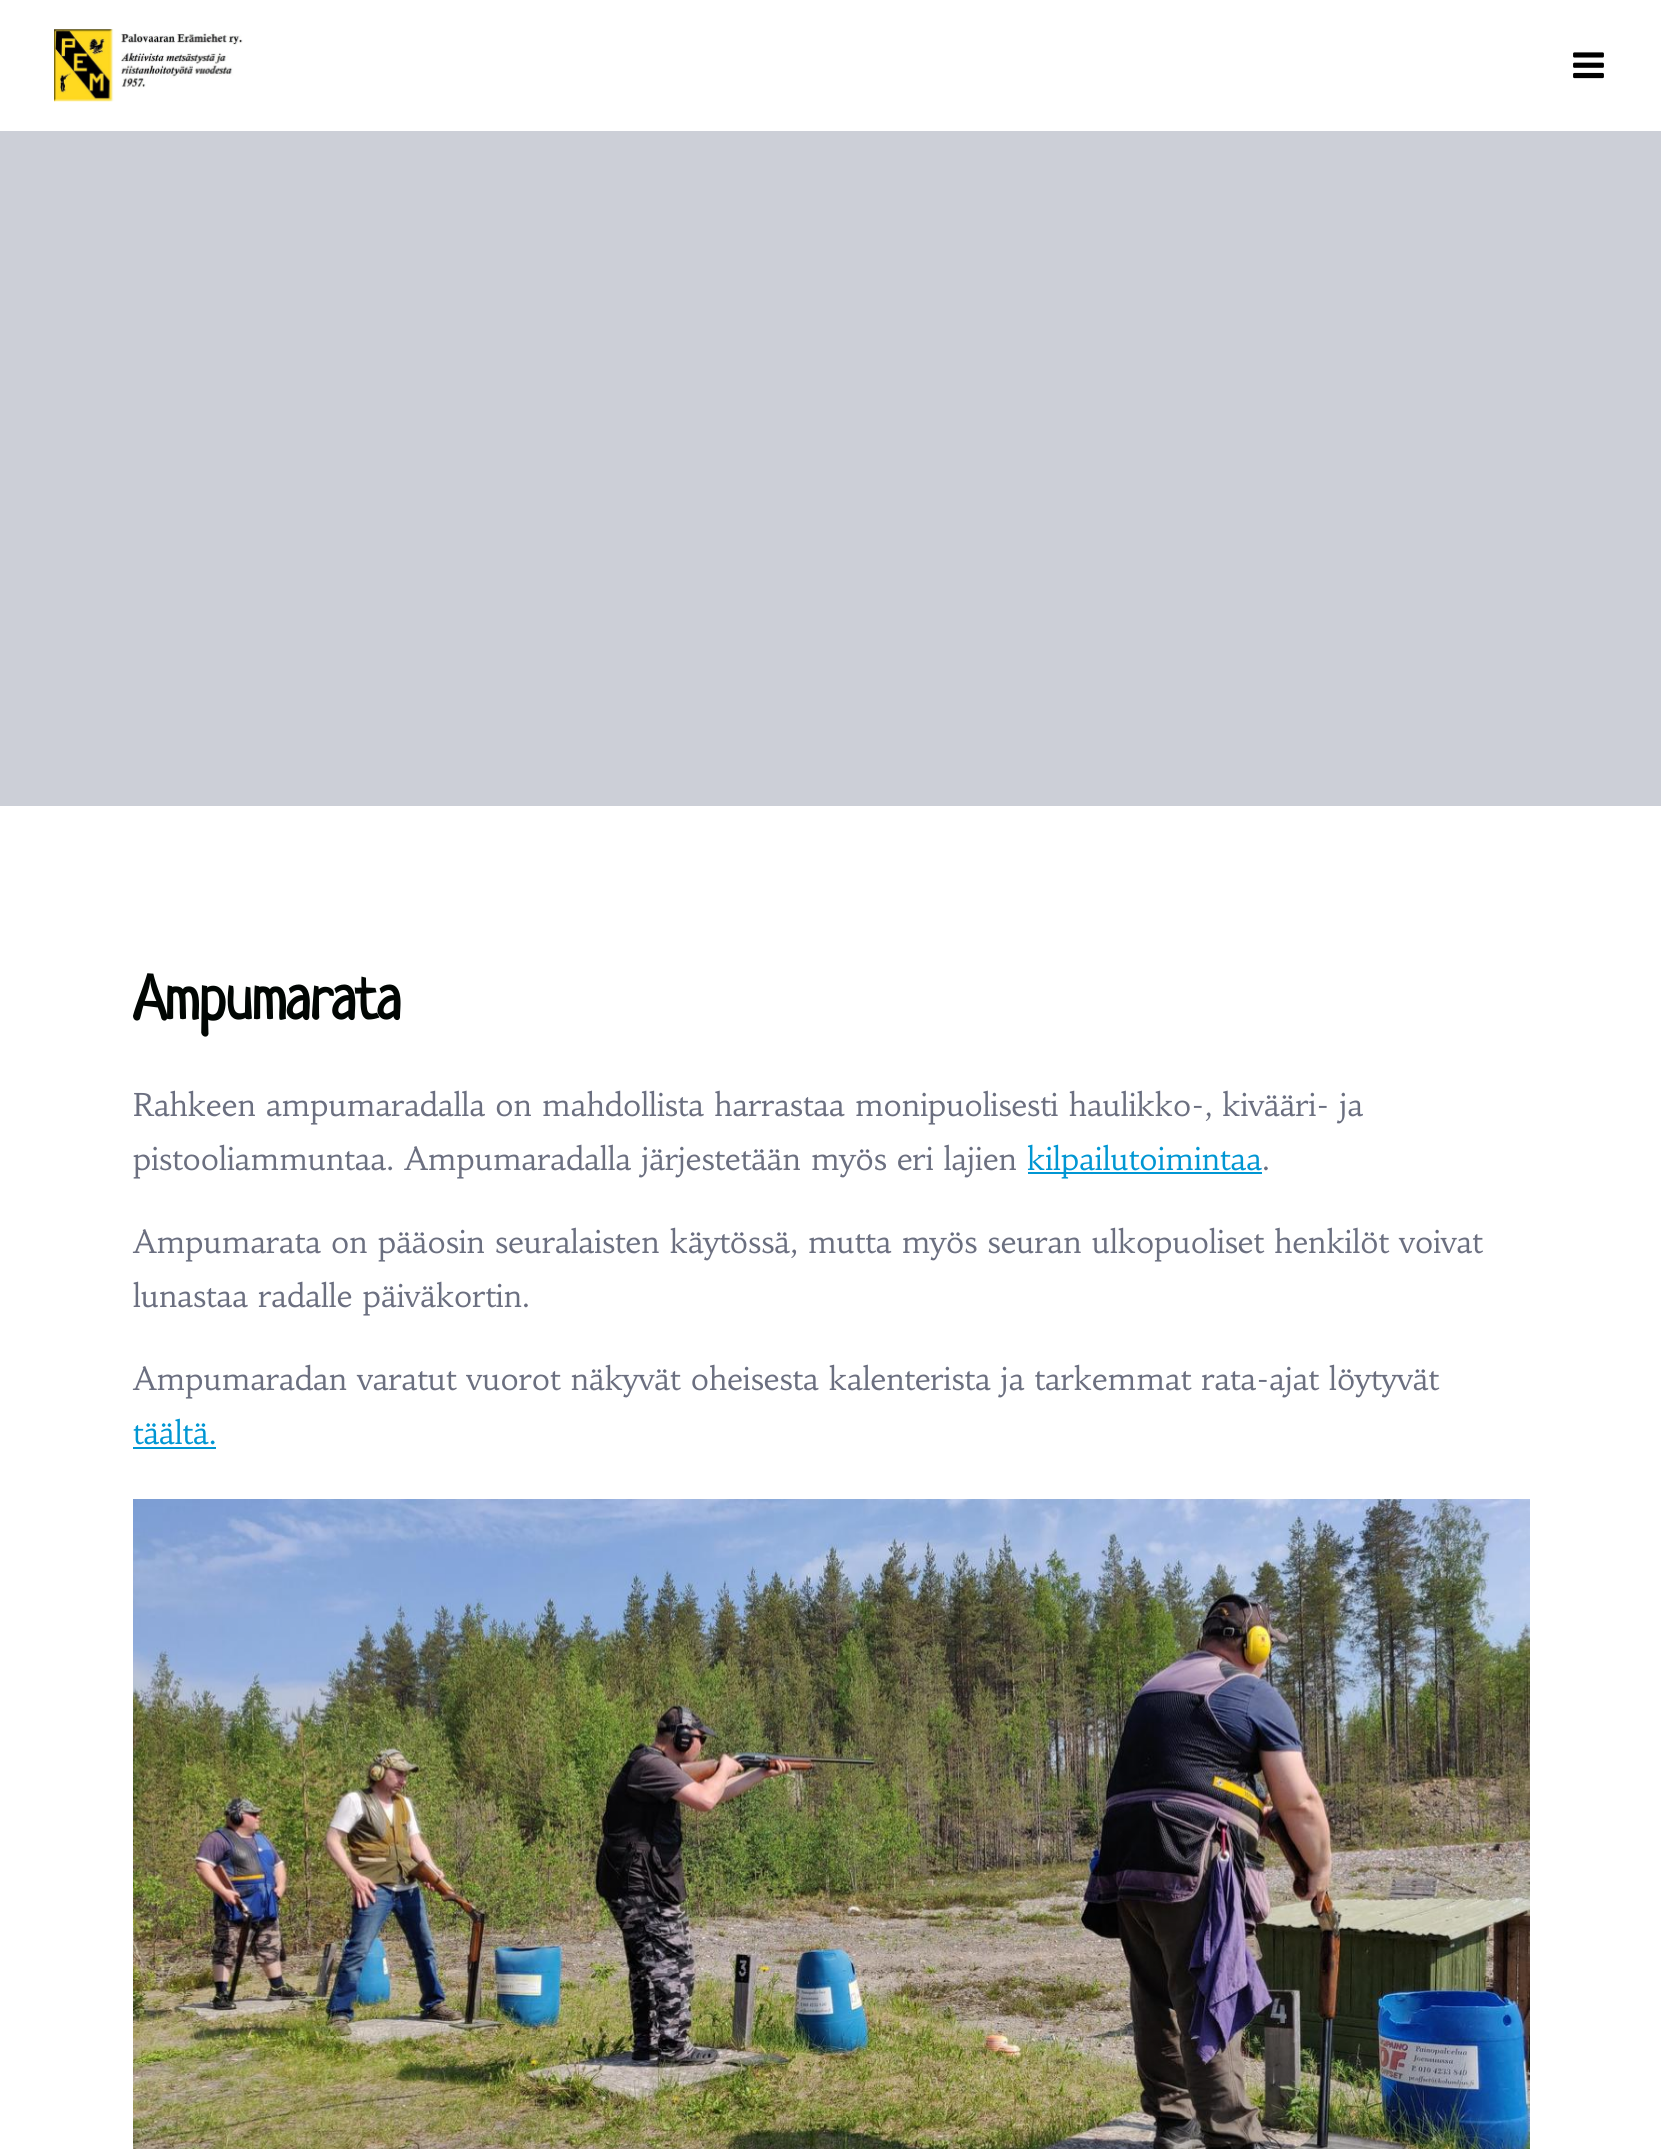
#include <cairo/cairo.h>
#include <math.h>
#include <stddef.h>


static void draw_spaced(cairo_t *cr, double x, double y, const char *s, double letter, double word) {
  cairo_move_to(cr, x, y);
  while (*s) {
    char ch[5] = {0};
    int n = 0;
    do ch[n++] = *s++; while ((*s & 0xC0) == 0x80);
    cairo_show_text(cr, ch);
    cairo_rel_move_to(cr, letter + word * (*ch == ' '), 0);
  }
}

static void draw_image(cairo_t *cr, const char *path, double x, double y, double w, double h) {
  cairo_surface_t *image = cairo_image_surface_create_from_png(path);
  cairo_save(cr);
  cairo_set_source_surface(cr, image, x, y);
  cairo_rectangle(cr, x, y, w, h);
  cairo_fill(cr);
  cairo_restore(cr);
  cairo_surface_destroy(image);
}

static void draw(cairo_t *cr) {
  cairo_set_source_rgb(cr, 1, 1, 1);
  cairo_paint(cr);
  draw_image(cr, "images/1.png", 54, 29, 189, 73);
  draw_image(cr, "images/2.png", 1573, 52, 31, 27);
  cairo_set_source_rgb(cr, 204 / 255.0, 207 / 255.0, 215 / 255.0);
  cairo_rectangle(cr, 0, 131, 1661, 675);
  cairo_fill(cr);
  cairo_set_source_rgb(cr, 0, 150 / 255.0, 211 / 255.0);
  cairo_rectangle(cr, 1028, 1172, 234, 2);
  cairo_fill(cr);
  cairo_rectangle(cr, 133, 1447, 83, 2);
  cairo_fill(cr);
  draw_image(cr, "images/3.png", 133, 1499, 1397, 650);
  cairo_select_font_face(cr, "Neucha", CAIRO_FONT_SLANT_NORMAL, CAIRO_FONT_WEIGHT_BOLD);
  cairo_set_font_size(cr, 62);
  cairo_set_source_rgb(cr, 1 / 255.0, 6 / 255.0, 3 / 255.0);
  draw_spaced(cr, 133, 1019, "Ampumarata", -1, 0);
  cairo_select_font_face(cr, "Habibi", CAIRO_FONT_SLANT_NORMAL, CAIRO_FONT_WEIGHT_NORMAL);
  cairo_set_font_size(cr, 31.3);
  cairo_set_source_rgb(cr, 107 / 255.0, 111 / 255.0, 128 / 255.0);
  draw_spaced(cr, 133, 1116, "Rahkeen ampumaradalla on mahdollista harrastaa monipuolisesti haulikko-, kivääri- ja", 0, -0.25);
  draw_spaced(cr, 133, 1170, "pistooliammuntaa. Ampumaradalla järjestetään myös eri lajien", 0, -0.25);
  cairo_set_source_rgb(cr, 0, 150 / 255.0, 211 / 255.0);
  cairo_move_to(cr, 1027, 1170);
  cairo_show_text(cr, "kilpailutoimintaa");
  cairo_set_source_rgb(cr, 107 / 255.0, 111 / 255.0, 128 / 255.0);
  cairo_move_to(cr, 1262, 1170);
  cairo_show_text(cr, ".");
  draw_spaced(cr, 133, 1253, "Ampumarata on pääosin seuralaisten käytössä, mutta myös seuran ulkopuoliset henkilöt voivat", 0, -0.25);
  cairo_move_to(cr, 133, 1307);
  cairo_show_text(cr, "lunastaa radalle päiväkortin.");
  draw_spaced(cr, 133, 1390, "Ampumaradan varatut vuorot näkyvät oheisesta kalenterista ja tarkemmat rata-ajat löytyvät", 0, -0.25);
  cairo_set_source_rgb(cr, 0, 150 / 255.0, 211 / 255.0);
  cairo_move_to(cr, 133, 1444);
  cairo_show_text(cr, "täältä.");
}

int main(void) {
  cairo_surface_t *surface = cairo_image_surface_create(CAIRO_FORMAT_RGB24, 1661, 2149);
  cairo_t *cr = cairo_create(surface);
  cairo_font_options_t *options = cairo_font_options_create();
  cairo_font_options_set_hint_metrics(options, CAIRO_HINT_METRICS_OFF);
  cairo_font_options_set_hint_style(options, CAIRO_HINT_STYLE_NONE);
  cairo_set_font_options(cr, options);
  cairo_set_miter_limit(cr, 4);
  draw(cr);
  cairo_surface_write_to_png(surface, "out.png");
  cairo_font_options_destroy(options);
  cairo_destroy(cr);
  cairo_surface_destroy(surface);
  return 0;
}
